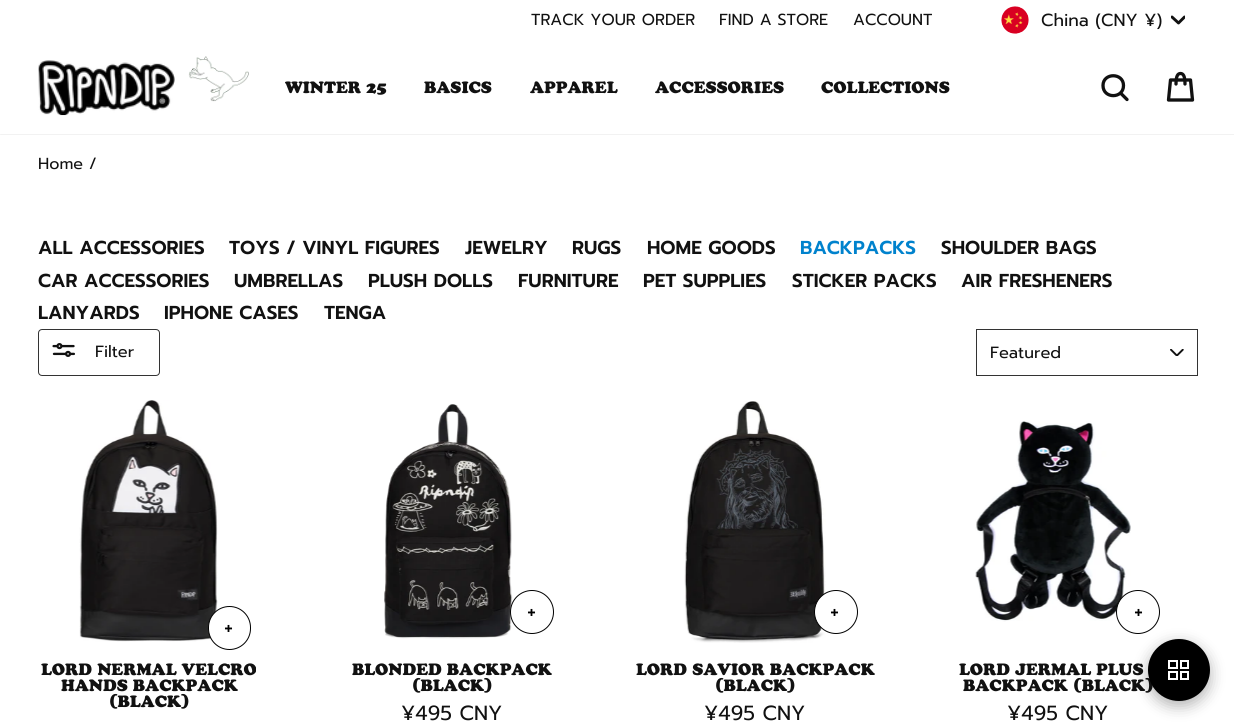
#include <cairo/cairo.h>
#include <math.h>
#include <stddef.h>


static void rounded_rect(cairo_t *cr, double x, double y, double w, double h, double r) {
  cairo_new_sub_path(cr);
  cairo_arc(cr, x + w - r, y + h - r, r, 0, M_PI / 2);
  cairo_arc(cr, x + r, y + h - r, r, M_PI / 2, M_PI);
  cairo_arc(cr, x + r, y + r, r, M_PI, 1.5 * M_PI);
  cairo_arc(cr, x + w - r, y + r, r, 1.5 * M_PI, 2 * M_PI);
  cairo_close_path(cr);
}

static void draw_shadow(cairo_t *cr, double x, double y, double w, double h, double r, double blur, double alpha) {
  cairo_push_group_with_content(cr, CAIRO_CONTENT_ALPHA);
  cairo_set_operator(cr, CAIRO_OPERATOR_SOURCE);
  for (int i = 15; i >= -15 && fmin(w, h) + blur * i / 3 > 0; i -= 2) {
    double e = blur * i / 6;
    cairo_set_source_rgba(cr, 0, 0, 0, alpha * erfc((i - 1) / 8.5) / 2);
    rounded_rect(cr, x - e, y - e, w + 2 * e, h + 2 * e, fmax(0, fmin(r + e + blur * .6, fmin(w, h) / 2 + e)));
    cairo_fill(cr);
  }
  cairo_pattern_t *soft = cairo_pop_group(cr);
  cairo_mask(cr, soft);
  cairo_pattern_destroy(soft);
}

static void draw_image(cairo_t *cr, const char *path, double x, double y, double w, double h) {
  cairo_surface_t *image = cairo_image_surface_create_from_png(path);
  cairo_save(cr);
  cairo_set_source_surface(cr, image, x, y);
  cairo_rectangle(cr, x, y, w, h);
  cairo_fill(cr);
  cairo_restore(cr);
  cairo_surface_destroy(image);
}

static void draw(cairo_t *cr) {
  cairo_set_source_rgb(cr, 1, 1, 1);
  cairo_paint(cr);
  draw_image(cr, "images/1.png", 1001, 6, 28, 28);
  cairo_save(cr);
  cairo_rectangle(cr, 1171, 14, 14, 14);
  cairo_clip(cr);
  cairo_new_path(cr);
  cairo_move_to(cr, 1172, 17);
  cairo_line_to(cr, 1178.5, 23);
  cairo_line_to(cr, 1184.5, 17);
  cairo_set_source_rgb(cr, 17 / 255.0, 17 / 255.0, 17 / 255.0);
  cairo_set_line_width(cr, 2.9);
  cairo_set_line_cap(cr, CAIRO_LINE_CAP_ROUND);
  cairo_set_line_join(cr, CAIRO_LINE_JOIN_ROUND);
  cairo_stroke(cr);
  cairo_restore(cr);
  cairo_set_source_rgb(cr, 0, 0, 0);
  draw_shadow(cr, 0, 40, 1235, 94, 0, 0.5, 0.2);
  cairo_set_source_rgb(cr, 1, 1, 1);
  cairo_rectangle(cr, 0, 39, 1234, 95);
  cairo_fill(cr);
  draw_image(cr, "images/2.png", 38, 60, 137, 56);
  draw_image(cr, "images/3.png", 188, 56, 61, 46);
  cairo_new_path(cr);
  cairo_move_to(cr, 1123.5, 85.5);
  cairo_curve_to(cr, 1123.5, 99, 1103, 99, 1103, 85.5);
  cairo_curve_to(cr, 1103, 72.5, 1123.5, 72.5, 1123.5, 85.5);
  cairo_close_path(cr);
  cairo_move_to(cr, 1127, 99.5);
  cairo_line_to(cr, 1120.5, 93);
  cairo_set_source_rgb(cr, 17 / 255.0, 17 / 255.0, 17 / 255.0);
  cairo_set_line_width(cr, 3.3);
  cairo_set_line_cap(cr, CAIRO_LINE_CAP_ROUND);
  cairo_set_line_join(cr, CAIRO_LINE_JOIN_ROUND);
  cairo_stroke(cr);
  cairo_new_path(cr);
  cairo_move_to(cr, 1176, 84);
  cairo_curve_to(cr, 1176, 75.5, 1178, 73.5, 1180.5, 73.5);
  cairo_curve_to(cr, 1183, 73.5, 1185, 75.5, 1185, 84);
  cairo_move_to(cr, 1170.5, 80);
  cairo_line_to(cr, 1190.5, 80);
  cairo_line_to(cr, 1192.5, 100);
  cairo_line_to(cr, 1168.5, 100);
  cairo_close_path(cr);
  cairo_stroke(cr);
  rounded_rect(cr, 38.5, 329.5, 121, 46, 3.5);
  cairo_set_source_rgb(cr, 51 / 255.0, 51 / 255.0, 51 / 255.0);
  cairo_set_line_width(cr, 1);
  cairo_set_line_cap(cr, CAIRO_LINE_CAP_BUTT);
  cairo_set_line_join(cr, CAIRO_LINE_JOIN_MITER);
  cairo_stroke(cr);
  draw_image(cr, "images/4.png", 52, 343, 23, 14);
  draw_image(cr, "images/5.png", 1170, 349, 14, 7);
  cairo_rectangle(cr, 976.5, 329.5, 221, 46);
  cairo_stroke(cr);
  draw_image(cr, "images/6.png", 79, 400, 139, 242);
  cairo_set_source_rgb(cr, 1, 1, 1);
  rounded_rect(cr, 208.5, 606.5, 42, 43, 21);
  cairo_fill_preserve(cr);
  cairo_set_source_rgb(cr, 0, 0, 0);
  cairo_stroke(cr);
  draw_image(cr, "images/7.png", 384, 404, 129, 235);
  cairo_set_source_rgb(cr, 1, 1, 1);
  cairo_arc(cr, 532, 612, 21.5, 0, 2 * M_PI);
  cairo_fill_preserve(cr);
  cairo_set_source_rgb(cr, 0, 0, 0);
  cairo_stroke(cr);
  draw_image(cr, "images/8.png", 684, 401, 142, 242);
  cairo_set_source_rgb(cr, 1, 1, 1);
  cairo_arc(cr, 836, 612, 21.5, 0, 2 * M_PI);
  cairo_fill_preserve(cr);
  cairo_set_source_rgb(cr, 0, 0, 0);
  cairo_stroke(cr);
  draw_image(cr, "images/9.png", 975, 421, 156, 201);
  cairo_set_source_rgb(cr, 1, 1, 1);
  cairo_arc(cr, 1138, 612, 21.5, 0, 2 * M_PI);
  cairo_fill_preserve(cr);
  cairo_set_source_rgb(cr, 0, 0, 0);
  cairo_stroke(cr);
  cairo_set_source_rgb(cr, 0, 0, 0);
  draw_shadow(cr, 1148, 644, 62, 62, 31, 7.5, 0.3);
  cairo_select_font_face(cr, "Prompt", CAIRO_FONT_SLANT_NORMAL, CAIRO_FONT_WEIGHT_NORMAL);
  cairo_set_font_size(cr, 16);
  cairo_set_source_rgb(cr, 17 / 255.0, 17 / 255.0, 17 / 255.0);
  cairo_move_to(cr, 531, 25);
  cairo_show_text(cr, "TRACK YOUR ORDER");
  cairo_move_to(cr, 719, 25);
  cairo_show_text(cr, "FIND A STORE");
  cairo_move_to(cr, 853, 25);
  cairo_show_text(cr, "ACCOUNT");
  cairo_set_font_size(cr, 17.5);
  cairo_move_to(cr, 1041, 26);
  cairo_show_text(cr, "China (CNY ¥)");
  cairo_select_font_face(cr, "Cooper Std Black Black", CAIRO_FONT_SLANT_NORMAL, CAIRO_FONT_WEIGHT_NORMAL);
  cairo_set_font_size(cr, 16.25);
  cairo_move_to(cr, 285, 93);
  cairo_show_text(cr, "WINTER 25");
  cairo_move_to(cr, 424, 93);
  cairo_show_text(cr, "BASICS");
  cairo_move_to(cr, 530, 93);
  cairo_show_text(cr, "APPAREL");
  cairo_move_to(cr, 655, 93);
  cairo_show_text(cr, "ACCESSORIES");
  cairo_move_to(cr, 821, 93);
  cairo_show_text(cr, "COLLECTIONS");
  cairo_select_font_face(cr, "Prompt", CAIRO_FONT_SLANT_NORMAL, CAIRO_FONT_WEIGHT_NORMAL);
  cairo_set_font_size(cr, 16);
  cairo_move_to(cr, 38, 169);
  cairo_show_text(cr, "Home /");
  cairo_select_font_face(cr, "Prompt SemiBold", CAIRO_FONT_SLANT_NORMAL, CAIRO_FONT_WEIGHT_NORMAL);
  cairo_set_font_size(cr, 18.75);
  cairo_move_to(cr, 38, 254);
  cairo_show_text(cr, "ALL ACCESSORIES");
  cairo_move_to(cr, 229, 254);
  cairo_show_text(cr, "TOYS / VINYL FIGURES");
  cairo_move_to(cr, 465, 254);
  cairo_show_text(cr, "JEWELRY");
  cairo_move_to(cr, 572, 254);
  cairo_show_text(cr, "RUGS");
  cairo_move_to(cr, 647, 254);
  cairo_show_text(cr, "HOME GOODS");
  cairo_set_source_rgb(cr, 0, 130 / 255.0, 205 / 255.0);
  cairo_move_to(cr, 800, 254);
  cairo_show_text(cr, "BACKPACKS");
  cairo_set_source_rgb(cr, 17 / 255.0, 17 / 255.0, 17 / 255.0);
  cairo_move_to(cr, 941, 254);
  cairo_show_text(cr, "SHOULDER BAGS");
  cairo_move_to(cr, 38, 287);
  cairo_show_text(cr, "CAR ACCESSORIES");
  cairo_move_to(cr, 234, 287);
  cairo_show_text(cr, "UMBRELLAS");
  cairo_move_to(cr, 368, 287);
  cairo_show_text(cr, "PLUSH DOLLS");
  cairo_move_to(cr, 518, 287);
  cairo_show_text(cr, "FURNITURE");
  cairo_move_to(cr, 643, 287);
  cairo_show_text(cr, "PET SUPPLIES");
  cairo_move_to(cr, 792, 287);
  cairo_show_text(cr, "STICKER PACKS");
  cairo_move_to(cr, 961, 287);
  cairo_show_text(cr, "AIR FRESHENERS");
  cairo_move_to(cr, 38, 319);
  cairo_show_text(cr, "LANYARDS");
  cairo_move_to(cr, 164, 319);
  cairo_show_text(cr, "IPHONE CASES");
  cairo_move_to(cr, 324, 319);
  cairo_show_text(cr, "TENGA");
  cairo_select_font_face(cr, "Prompt", CAIRO_FONT_SLANT_NORMAL, CAIRO_FONT_WEIGHT_NORMAL);
  cairo_set_font_size(cr, 16.25);
  cairo_move_to(cr, 95, 357);
  cairo_show_text(cr, "Filter");
  cairo_move_to(cr, 990, 358);
  cairo_show_text(cr, "Featured");
  cairo_set_font_size(cr, 22);
  cairo_set_source_rgb(cr, 0, 0, 0);
  cairo_move_to(cr, 224, 635);
  cairo_show_text(cr, "+");
  cairo_select_font_face(cr, "Cooper Std Black Black", CAIRO_FONT_SLANT_NORMAL, CAIRO_FONT_WEIGHT_NORMAL);
  cairo_set_font_size(cr, 16.25);
  cairo_set_source_rgb(cr, 17 / 255.0, 17 / 255.0, 17 / 255.0);
  cairo_move_to(cr, 41, 675);
  cairo_show_text(cr, "LORD NERMAL VELCRO");
  cairo_move_to(cr, 61, 691);
  cairo_show_text(cr, "HANDS BACKPACK");
  cairo_move_to(cr, 109, 707);
  cairo_show_text(cr, "(BLACK)");
  cairo_select_font_face(cr, "Prompt", CAIRO_FONT_SLANT_NORMAL, CAIRO_FONT_WEIGHT_NORMAL);
  cairo_set_font_size(cr, 22);
  cairo_set_source_rgb(cr, 0, 0, 0);
  cairo_move_to(cr, 527, 619);
  cairo_show_text(cr, "+");
  cairo_select_font_face(cr, "Cooper Std Black Black", CAIRO_FONT_SLANT_NORMAL, CAIRO_FONT_WEIGHT_NORMAL);
  cairo_set_font_size(cr, 16.25);
  cairo_set_source_rgb(cr, 17 / 255.0, 17 / 255.0, 17 / 255.0);
  cairo_move_to(cr, 352, 675);
  cairo_show_text(cr, "BLONDED BACKPACK");
  cairo_move_to(cr, 412, 691);
  cairo_show_text(cr, "(BLACK)");
  cairo_select_font_face(cr, "Prompt", CAIRO_FONT_SLANT_NORMAL, CAIRO_FONT_WEIGHT_NORMAL);
  cairo_set_font_size(cr, 20.5);
  cairo_move_to(cr, 401, 720);
  cairo_show_text(cr, "¥495 CNY");
  cairo_set_font_size(cr, 22);
  cairo_set_source_rgb(cr, 0, 0, 0);
  cairo_move_to(cr, 830, 619);
  cairo_show_text(cr, "+");
  cairo_select_font_face(cr, "Cooper Std Black Black", CAIRO_FONT_SLANT_NORMAL, CAIRO_FONT_WEIGHT_NORMAL);
  cairo_set_font_size(cr, 16.25);
  cairo_set_source_rgb(cr, 17 / 255.0, 17 / 255.0, 17 / 255.0);
  cairo_move_to(cr, 636, 675);
  cairo_show_text(cr, "LORD SAVIOR BACKPACK");
  cairo_move_to(cr, 715, 691);
  cairo_show_text(cr, "(BLACK)");
  cairo_select_font_face(cr, "Prompt", CAIRO_FONT_SLANT_NORMAL, CAIRO_FONT_WEIGHT_NORMAL);
  cairo_set_font_size(cr, 20.5);
  cairo_move_to(cr, 704, 720);
  cairo_show_text(cr, "¥495 CNY");
  cairo_set_font_size(cr, 22);
  cairo_set_source_rgb(cr, 0, 0, 0);
  cairo_move_to(cr, 1134, 619);
  cairo_show_text(cr, "+");
  cairo_select_font_face(cr, "Cooper Std Black Black", CAIRO_FONT_SLANT_NORMAL, CAIRO_FONT_WEIGHT_NORMAL);
  cairo_set_font_size(cr, 16.25);
  cairo_set_source_rgb(cr, 17 / 255.0, 17 / 255.0, 17 / 255.0);
  cairo_move_to(cr, 959, 675);
  cairo_show_text(cr, "LORD JERMAL PLUS");
  cairo_move_to(cr, 963, 691);
  cairo_show_text(cr, "BACKPACK (BLACK)");
  cairo_select_font_face(cr, "Prompt", CAIRO_FONT_SLANT_NORMAL, CAIRO_FONT_WEIGHT_NORMAL);
  cairo_set_font_size(cr, 20.5);
  cairo_move_to(cr, 1007, 720);
  cairo_show_text(cr, "¥495 CNY");
  cairo_set_source_rgb(cr, 0, 0, 0);
  cairo_new_path(cr);
  cairo_arc(cr, 1179, 670, 31, 0, 2 * M_PI);
  cairo_fill(cr);
  cairo_rectangle(cr, 1169, 661, 8, 7);
  cairo_set_source_rgb(cr, 1, 1, 1);
  cairo_set_line_width(cr, 2);
  cairo_stroke(cr);
  cairo_rectangle(cr, 1181, 661, 7, 7);
  cairo_stroke(cr);
  cairo_rectangle(cr, 1181, 672, 7, 7);
  cairo_stroke(cr);
  cairo_rectangle(cr, 1169, 672, 8, 7);
  cairo_stroke(cr);
}

int main(void) {
  cairo_surface_t *surface = cairo_image_surface_create(CAIRO_FORMAT_RGB24, 1234, 726);
  cairo_t *cr = cairo_create(surface);
  cairo_font_options_t *options = cairo_font_options_create();
  cairo_font_options_set_hint_metrics(options, CAIRO_HINT_METRICS_OFF);
  cairo_font_options_set_hint_style(options, CAIRO_HINT_STYLE_NONE);
  cairo_set_font_options(cr, options);
  cairo_set_miter_limit(cr, 4);
  draw(cr);
  cairo_surface_write_to_png(surface, "out.png");
  cairo_font_options_destroy(options);
  cairo_destroy(cr);
  cairo_surface_destroy(surface);
  return 0;
}
